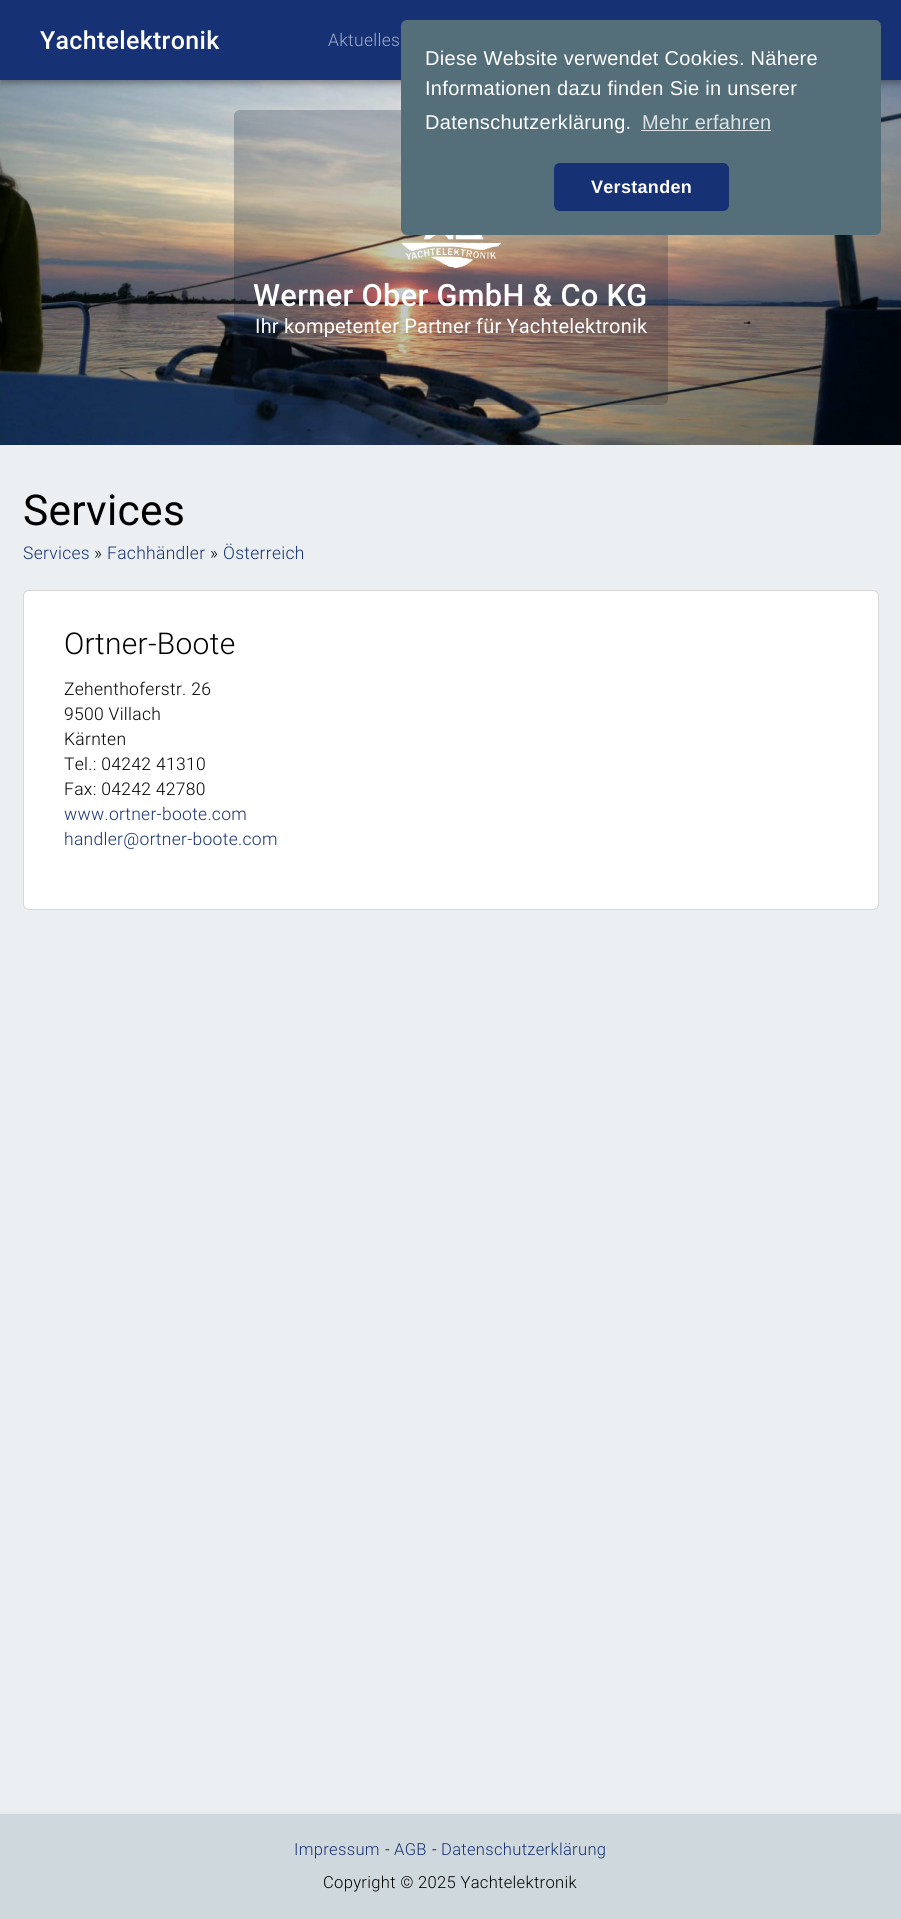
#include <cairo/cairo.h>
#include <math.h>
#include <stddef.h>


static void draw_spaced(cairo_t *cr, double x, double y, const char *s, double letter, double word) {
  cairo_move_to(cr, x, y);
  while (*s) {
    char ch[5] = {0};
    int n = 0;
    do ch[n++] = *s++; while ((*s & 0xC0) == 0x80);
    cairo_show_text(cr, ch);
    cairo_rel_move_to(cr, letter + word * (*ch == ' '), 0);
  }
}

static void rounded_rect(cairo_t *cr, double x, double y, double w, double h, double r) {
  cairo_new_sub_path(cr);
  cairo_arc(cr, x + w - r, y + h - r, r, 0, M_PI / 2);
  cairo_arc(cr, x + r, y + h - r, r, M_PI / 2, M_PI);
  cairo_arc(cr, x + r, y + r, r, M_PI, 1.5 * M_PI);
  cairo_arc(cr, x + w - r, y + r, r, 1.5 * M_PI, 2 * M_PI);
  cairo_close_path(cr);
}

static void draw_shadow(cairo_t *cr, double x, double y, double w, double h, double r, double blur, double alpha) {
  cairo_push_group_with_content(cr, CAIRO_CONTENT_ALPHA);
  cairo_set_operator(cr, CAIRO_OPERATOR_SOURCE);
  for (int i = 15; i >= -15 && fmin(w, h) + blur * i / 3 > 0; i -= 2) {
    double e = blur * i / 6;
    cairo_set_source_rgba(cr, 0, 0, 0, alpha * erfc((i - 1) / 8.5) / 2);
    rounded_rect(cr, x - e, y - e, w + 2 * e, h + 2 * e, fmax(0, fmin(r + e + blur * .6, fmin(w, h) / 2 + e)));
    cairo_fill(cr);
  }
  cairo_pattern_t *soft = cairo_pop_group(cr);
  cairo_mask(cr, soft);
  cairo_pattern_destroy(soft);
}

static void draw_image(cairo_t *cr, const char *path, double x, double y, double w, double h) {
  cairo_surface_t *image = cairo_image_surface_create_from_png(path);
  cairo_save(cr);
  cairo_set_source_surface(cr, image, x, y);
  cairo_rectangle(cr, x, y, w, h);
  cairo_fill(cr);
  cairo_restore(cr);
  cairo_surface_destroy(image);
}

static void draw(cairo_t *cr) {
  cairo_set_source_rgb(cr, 236 / 255.0, 239 / 255.0, 241 / 255.0);
  cairo_paint(cr);
  draw_image(cr, "images/1.png", 0, 80, 901, 365);
  cairo_set_source_rgb(cr, 0, 0, 0);
  draw_shadow(cr, 0, 1, 901, 80, 0, 6, 0.12);
  draw_shadow(cr, 0, 5, 901, 80, 0, 3, 0.14);
  draw_shadow(cr, 1, 4, 899, 77, 0, 2.5, 0.2);
  cairo_set_source_rgb(cr, 22 / 255.0, 49 / 255.0, 116 / 255.0);
  cairo_rectangle(cr, 0, 0, 901, 80);
  cairo_fill(cr);
  cairo_set_source_rgba(cr, 16 / 255.0, 25 / 255.0, 51 / 255.0, 0.24);
  rounded_rect(cr, 234, 110, 434, 295, 6);
  cairo_fill(cr);
  cairo_set_source_rgb(cr, 84 / 255.0, 110 / 255.0, 122 / 255.0);
  rounded_rect(cr, 401, 20, 480, 215, 6);
  cairo_fill(cr);
  cairo_set_source_rgb(cr, 221 / 255.0, 226 / 255.0, 228 / 255.0);
  cairo_rectangle(cr, 641, 130, 130, 1);
  cairo_fill(cr);
  cairo_set_source_rgb(cr, 22 / 255.0, 49 / 255.0, 116 / 255.0);
  rounded_rect(cr, 554, 163, 175, 48, 6);
  cairo_fill(cr);
  draw_image(cr, "images/2.png", 401, 235, 100, 33);
  cairo_set_source_rgb(cr, 1, 1, 1);
  rounded_rect(cr, 23.5, 590.5, 855, 319, 5.5);
  cairo_fill_preserve(cr);
  cairo_set_source_rgb(cr, 216 / 255.0, 216 / 255.0, 216 / 255.0);
  cairo_set_line_width(cr, 1);
  cairo_stroke(cr);
  cairo_set_source_rgb(cr, 0, 0, 0);
  draw_shadow(cr, 0, 1815, 901, 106, 0, 3, 0.12);
  cairo_set_source_rgb(cr, 207 / 255.0, 216 / 255.0, 220 / 255.0);
  cairo_rectangle(cr, 0, 1814, 901, 105);
  cairo_fill(cr);
  cairo_select_font_face(cr, "Roboto Medium", CAIRO_FONT_SLANT_NORMAL, CAIRO_FONT_WEIGHT_NORMAL);
  cairo_set_font_size(cr, 25);
  cairo_set_source_rgb(cr, 1, 1, 1);
  draw_spaced(cr, 40, 49, "Yachtelektronik", 0.3, 0);
  cairo_select_font_face(cr, "Roboto Light", CAIRO_FONT_SLANT_NORMAL, CAIRO_FONT_WEIGHT_NORMAL);
  cairo_set_font_size(cr, 17.5);
  cairo_set_source_rgb(cr, 162 / 255.0, 173 / 255.0, 199 / 255.0);
  draw_spaced(cr, 328, 46, "Aktuelles", 0.3, 0);
  cairo_select_font_face(cr, "Liberation Sans", CAIRO_FONT_SLANT_NORMAL, CAIRO_FONT_WEIGHT_NORMAL);
  cairo_set_font_size(cr, 20);
  cairo_set_source_rgb(cr, 1, 1, 1);
  draw_spaced(cr, 425, 65, "Diese Website verwendet Cookies. Nähere", 0.3, 0);
  draw_spaced(cr, 425, 95, "Informationen dazu finden Sie in unserer", 0.3, 0);
  draw_spaced(cr, 425, 129, "Datenschutzerklärung.", 0.3, 0);
  cairo_set_source_rgb(cr, 221 / 255.0, 226 / 255.0, 228 / 255.0);
  draw_spaced(cr, 642, 129, "Mehr erfahren", 0.3, 0);
  cairo_select_font_face(cr, "Liberation Sans", CAIRO_FONT_SLANT_NORMAL, CAIRO_FONT_WEIGHT_BOLD);
  cairo_set_font_size(cr, 18);
  cairo_set_source_rgb(cr, 1, 1, 1);
  draw_spaced(cr, 591, 193, "Verstanden", 0.3, 0);
  cairo_select_font_face(cr, "Roboto Medium", CAIRO_FONT_SLANT_NORMAL, CAIRO_FONT_WEIGHT_NORMAL);
  cairo_set_font_size(cr, 30.75);
  draw_spaced(cr, 253, 306, "Werner Ober GmbH & Co KG", 0.3, 0);
  cairo_select_font_face(cr, "Roboto", CAIRO_FONT_SLANT_NORMAL, CAIRO_FONT_WEIGHT_NORMAL);
  cairo_set_font_size(cr, 20);
  draw_spaced(cr, 255, 333, "Ihr kompetenter Partner für Yachtelektronik", 0.2, 0);
  cairo_set_font_size(cr, 42.5);
  cairo_set_source_rgb(cr, 0, 0, 0);
  draw_spaced(cr, 23, 525, "Services", 0.3, 0);
  cairo_select_font_face(cr, "Roboto Light", CAIRO_FONT_SLANT_NORMAL, CAIRO_FONT_WEIGHT_NORMAL);
  cairo_set_font_size(cr, 17.5);
  cairo_set_source_rgb(cr, 22 / 255.0, 49 / 255.0, 116 / 255.0);
  draw_spaced(cr, 23, 559, "Services", 0.3, 0);
  cairo_set_source_rgb(cr, 0, 0, 0);
  draw_spaced(cr, 94, 559, "»", 0.3, 0);
  cairo_set_source_rgb(cr, 22 / 255.0, 49 / 255.0, 116 / 255.0);
  draw_spaced(cr, 107, 559, "Fachhändler", 0.3, 0);
  cairo_set_source_rgb(cr, 0, 0, 0);
  draw_spaced(cr, 210, 559, "»", 0.3, 0);
  cairo_set_source_rgb(cr, 22 / 255.0, 49 / 255.0, 116 / 255.0);
  draw_spaced(cr, 223, 559, "Österreich", 0.3, 0);
  cairo_set_font_size(cr, 30);
  cairo_set_source_rgb(cr, 0, 0, 0);
  draw_spaced(cr, 64, 654, "Ortner-Boote", 0.3, 0);
  cairo_set_font_size(cr, 17.5);
  draw_spaced(cr, 64, 695, "Zehenthoferstr. 26", 0.3, 0);
  draw_spaced(cr, 64, 720, "9500 Villach", 0.3, 0);
  draw_spaced(cr, 64, 745, "Kärnten", 0.3, 0);
  draw_spaced(cr, 64, 770, "Tel.: 04242 41310", 0.3, 0);
  draw_spaced(cr, 64, 795, "Fax: 04242 42780", 0.3, 0);
  cairo_set_source_rgb(cr, 22 / 255.0, 49 / 255.0, 116 / 255.0);
  draw_spaced(cr, 64, 820, "www.ortner-boote.com", 0.3, 0);
  draw_spaced(cr, 64, 845, "handler@ortner-boote.com", 0.3, 0);
  cairo_set_font_size(cr, 16.6);
  draw_spaced(cr, 294, 1855, "Impressum", 0.3, 0);
  cairo_set_source_rgb(cr, 0, 0, 0);
  draw_spaced(cr, 385, 1855, "-", 0.3, 0);
  cairo_set_source_rgb(cr, 22 / 255.0, 49 / 255.0, 116 / 255.0);
  draw_spaced(cr, 394, 1855, "AGB", 0.3, 0);
  cairo_set_source_rgb(cr, 0, 0, 0);
  draw_spaced(cr, 432, 1855, "-", 0.3, 0);
  cairo_set_source_rgb(cr, 22 / 255.0, 49 / 255.0, 116 / 255.0);
  draw_spaced(cr, 441, 1855, "Datenschutzerklärung", 0.3, 0);
  cairo_set_source_rgb(cr, 0, 0, 0);
  draw_spaced(cr, 323, 1888, "Copyright © 2025 Yachtelektronik", 0.3, 0);
}

int main(void) {
  cairo_surface_t *surface = cairo_image_surface_create(CAIRO_FORMAT_RGB24, 901, 1919);
  cairo_t *cr = cairo_create(surface);
  cairo_font_options_t *options = cairo_font_options_create();
  cairo_font_options_set_hint_metrics(options, CAIRO_HINT_METRICS_OFF);
  cairo_font_options_set_hint_style(options, CAIRO_HINT_STYLE_NONE);
  cairo_set_font_options(cr, options);
  cairo_set_miter_limit(cr, 4);
  draw(cr);
  cairo_surface_write_to_png(surface, "out.png");
  cairo_font_options_destroy(options);
  cairo_destroy(cr);
  cairo_surface_destroy(surface);
  return 0;
}
